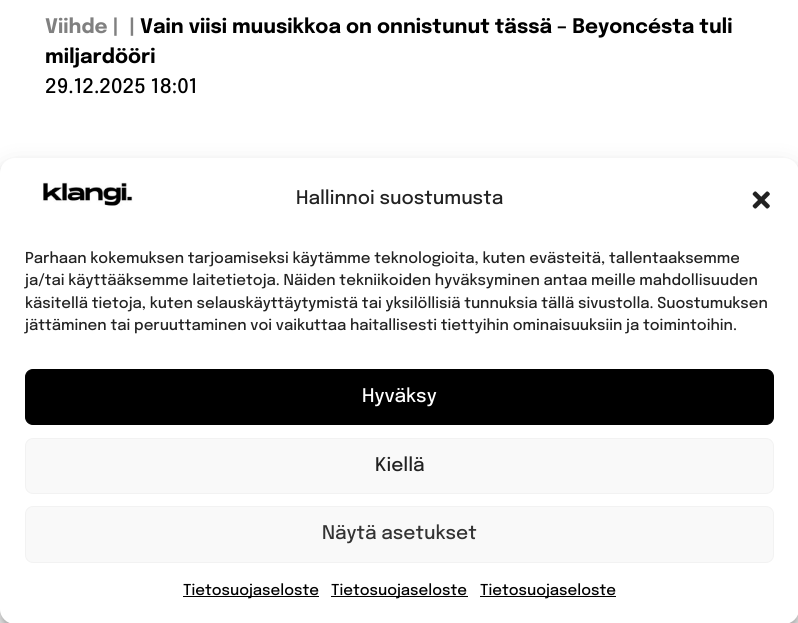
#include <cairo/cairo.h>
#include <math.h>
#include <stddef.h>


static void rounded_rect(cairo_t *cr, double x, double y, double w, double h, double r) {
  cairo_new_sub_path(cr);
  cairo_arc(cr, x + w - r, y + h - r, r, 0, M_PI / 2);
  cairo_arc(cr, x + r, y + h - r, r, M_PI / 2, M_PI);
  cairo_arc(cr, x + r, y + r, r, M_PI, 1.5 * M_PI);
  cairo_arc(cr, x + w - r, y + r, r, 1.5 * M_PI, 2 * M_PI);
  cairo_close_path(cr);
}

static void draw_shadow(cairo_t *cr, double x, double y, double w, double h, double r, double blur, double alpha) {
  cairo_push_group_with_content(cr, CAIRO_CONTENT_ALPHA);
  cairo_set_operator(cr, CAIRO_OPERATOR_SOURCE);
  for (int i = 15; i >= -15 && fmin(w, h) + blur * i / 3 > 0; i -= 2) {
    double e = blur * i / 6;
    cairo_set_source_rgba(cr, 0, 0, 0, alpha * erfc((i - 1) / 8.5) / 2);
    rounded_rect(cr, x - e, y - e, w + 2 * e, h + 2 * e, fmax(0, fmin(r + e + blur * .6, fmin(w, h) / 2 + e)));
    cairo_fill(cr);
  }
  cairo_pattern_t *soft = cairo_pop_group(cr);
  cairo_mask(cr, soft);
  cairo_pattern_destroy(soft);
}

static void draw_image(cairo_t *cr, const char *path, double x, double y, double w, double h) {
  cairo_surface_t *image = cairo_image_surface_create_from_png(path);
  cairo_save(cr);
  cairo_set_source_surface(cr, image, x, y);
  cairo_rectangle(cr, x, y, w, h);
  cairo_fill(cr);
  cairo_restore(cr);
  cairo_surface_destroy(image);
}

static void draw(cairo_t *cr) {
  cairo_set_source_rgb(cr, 1, 1, 1);
  cairo_paint(cr);
  cairo_set_source_rgb(cr, 0, 0, 0);
  draw_shadow(cr, 0, 165, 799, 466, 15, 4, 0.23);
  draw_shadow(cr, 0, 170, 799, 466, 15, 12.5, 0.19);
  cairo_set_source_rgb(cr, 1, 1, 1);
  rounded_rect(cr, 0, 158, 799, 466, 15);
  cairo_fill(cr);
  draw_image(cr, "images/1.png", 42, 182, 91, 24);
  draw_image(cr, "images/2.png", 752, 191, 18, 18);
  cairo_set_source_rgb(cr, 0, 0, 0);
  rounded_rect(cr, 25.5, 369.5, 748, 55, 7.5);
  cairo_fill_preserve(cr);
  cairo_set_line_width(cr, 1);
  cairo_stroke(cr);
  cairo_set_source_rgb(cr, 249 / 255.0, 249 / 255.0, 249 / 255.0);
  rounded_rect(cr, 25.5, 438.5, 748, 55, 7.5);
  cairo_fill_preserve(cr);
  cairo_set_source_rgb(cr, 242 / 255.0, 242 / 255.0, 242 / 255.0);
  cairo_stroke(cr);
  cairo_set_source_rgb(cr, 249 / 255.0, 249 / 255.0, 249 / 255.0);
  rounded_rect(cr, 25.5, 506.5, 748, 56, 7.5);
  cairo_fill_preserve(cr);
  cairo_set_source_rgb(cr, 242 / 255.0, 242 / 255.0, 242 / 255.0);
  cairo_stroke(cr);
  cairo_set_source_rgb(cr, 0, 0, 0);
  cairo_rectangle(cr, 183, 596, 136, 1);
  cairo_fill(cr);
  cairo_rectangle(cr, 331, 596, 137, 1);
  cairo_fill(cr);
  cairo_rectangle(cr, 480, 596, 136, 1);
  cairo_fill(cr);
  cairo_select_font_face(cr, "Epilogue", CAIRO_FONT_SLANT_NORMAL, CAIRO_FONT_WEIGHT_BOLD);
  cairo_set_font_size(cr, 20);
  cairo_set_source_rgb(cr, 128 / 255.0, 128 / 255.0, 128 / 255.0);
  cairo_move_to(cr, 45, 33);
  cairo_show_text(cr, "Viihde |");
  cairo_move_to(cr, 129, 33);
  cairo_show_text(cr, "|");
  cairo_set_source_rgb(cr, 0, 0, 0);
  cairo_move_to(cr, 140, 33);
  cairo_show_text(cr, "Vain viisi muusikkoa on onnistunut tässä – Beyoncésta tuli");
  cairo_move_to(cr, 45, 63);
  cairo_show_text(cr, "miljardööri");
  cairo_select_font_face(cr, "Epilogue Medium", CAIRO_FONT_SLANT_NORMAL, CAIRO_FONT_WEIGHT_NORMAL);
  cairo_move_to(cr, 45, 93);
  cairo_show_text(cr, "29.12.2025 18:01");
  cairo_set_font_size(cr, 18.75);
  cairo_set_source_rgb(cr, 34 / 255.0, 34 / 255.0, 34 / 255.0);
  cairo_move_to(cr, 296, 204);
  cairo_show_text(cr, "Hallinnoi suostumusta");
  cairo_set_font_size(cr, 15);
  cairo_move_to(cr, 25, 263);
  cairo_show_text(cr, "Parhaan kokemuksen tarjoamiseksi käytämme teknologioita, kuten evästeitä, tallentaaksemme");
  cairo_move_to(cr, 25, 285);
  cairo_show_text(cr, "ja/tai käyttääksemme laitetietoja. Näiden tekniikoiden hyväksyminen antaa meille mahdollisuuden");
  cairo_move_to(cr, 25, 308);
  cairo_show_text(cr, "käsitellä tietoja, kuten selauskäyttäytymistä tai yksilöllisiä tunnuksia tällä sivustolla. Suostumuksen");
  cairo_move_to(cr, 25, 330);
  cairo_show_text(cr, "jättäminen tai peruuttaminen voi vaikuttaa haitallisesti tiettyihin ominaisuuksiin ja toimintoihin.");
  cairo_set_font_size(cr, 18.75);
  cairo_set_source_rgb(cr, 1, 1, 1);
  cairo_move_to(cr, 362, 402);
  cairo_show_text(cr, "Hyväksy");
  cairo_set_source_rgb(cr, 34 / 255.0, 34 / 255.0, 34 / 255.0);
  cairo_move_to(cr, 375, 471);
  cairo_show_text(cr, "Kiellä");
  cairo_set_source_rgb(cr, 51 / 255.0, 51 / 255.0, 51 / 255.0);
  cairo_move_to(cr, 322, 539);
  cairo_show_text(cr, "Näytä asetukset");
  cairo_set_font_size(cr, 15);
  cairo_set_source_rgb(cr, 0, 0, 0);
  cairo_move_to(cr, 183, 595);
  cairo_show_text(cr, "Tietosuojaseloste");
  cairo_move_to(cr, 331, 595);
  cairo_show_text(cr, "Tietosuojaseloste");
  cairo_move_to(cr, 480, 595);
  cairo_show_text(cr, "Tietosuojaseloste");
}

int main(void) {
  cairo_surface_t *surface = cairo_image_surface_create(CAIRO_FORMAT_RGB24, 798, 623);
  cairo_t *cr = cairo_create(surface);
  cairo_font_options_t *options = cairo_font_options_create();
  cairo_font_options_set_hint_metrics(options, CAIRO_HINT_METRICS_OFF);
  cairo_font_options_set_hint_style(options, CAIRO_HINT_STYLE_NONE);
  cairo_set_font_options(cr, options);
  cairo_set_miter_limit(cr, 4);
  draw(cr);
  cairo_surface_write_to_png(surface, "out.png");
  cairo_font_options_destroy(options);
  cairo_destroy(cr);
  cairo_surface_destroy(surface);
  return 0;
}
